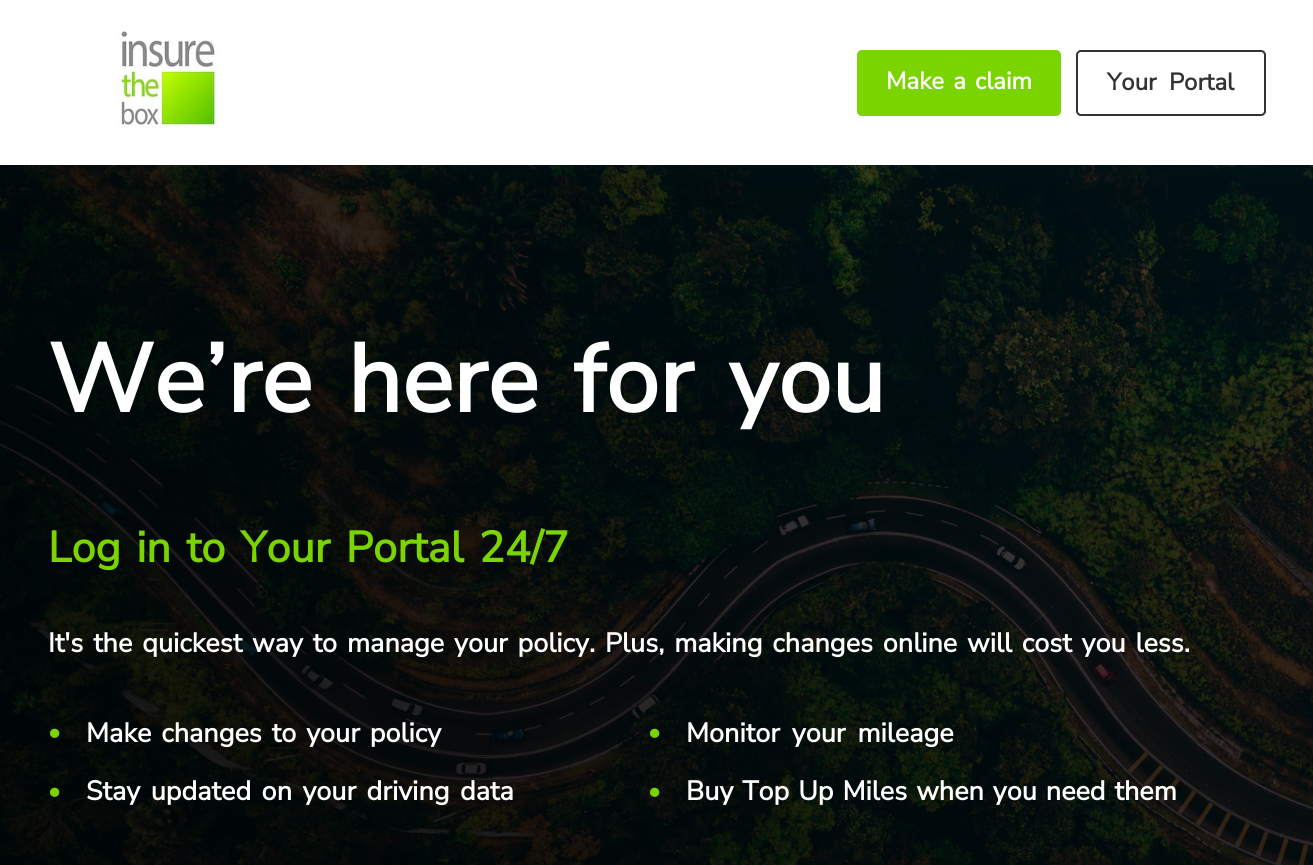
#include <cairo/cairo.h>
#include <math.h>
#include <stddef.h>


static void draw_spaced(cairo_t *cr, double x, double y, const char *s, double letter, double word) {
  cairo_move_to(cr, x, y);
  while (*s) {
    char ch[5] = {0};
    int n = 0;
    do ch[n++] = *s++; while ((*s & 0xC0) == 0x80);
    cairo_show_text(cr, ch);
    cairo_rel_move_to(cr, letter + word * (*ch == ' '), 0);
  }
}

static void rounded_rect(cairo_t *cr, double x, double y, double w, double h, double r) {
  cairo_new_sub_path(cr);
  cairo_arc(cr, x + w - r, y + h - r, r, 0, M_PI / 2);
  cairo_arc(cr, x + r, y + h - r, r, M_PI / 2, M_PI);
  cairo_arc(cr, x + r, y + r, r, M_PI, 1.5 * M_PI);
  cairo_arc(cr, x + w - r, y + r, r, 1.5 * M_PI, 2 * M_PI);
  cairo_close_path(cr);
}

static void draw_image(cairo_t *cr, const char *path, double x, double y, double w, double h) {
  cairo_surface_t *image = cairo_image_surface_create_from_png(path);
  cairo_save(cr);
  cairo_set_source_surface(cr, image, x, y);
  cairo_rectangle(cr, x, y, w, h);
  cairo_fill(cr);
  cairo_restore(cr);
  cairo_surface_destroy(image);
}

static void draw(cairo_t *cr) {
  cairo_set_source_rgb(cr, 1, 1, 1);
  cairo_paint(cr);
  draw_image(cr, "images/1.png", 0, 165, 1313, 700);
  draw_image(cr, "images/2.png", 117, 31, 102, 102);
  cairo_set_source_rgb(cr, 122 / 255.0, 212 / 255.0, 0);
  rounded_rect(cr, 857, 50, 204, 66, 5);
  cairo_fill(cr);
  rounded_rect(cr, 1077, 51, 188, 64, 4);
  cairo_set_source_rgb(cr, 51 / 255.0, 51 / 255.0, 51 / 255.0);
  cairo_stroke(cr);
  cairo_select_font_face(cr, "Nunito Sans", CAIRO_FONT_SLANT_NORMAL, CAIRO_FONT_WEIGHT_BOLD);
  cairo_set_font_size(cr, 24);
  cairo_set_source_rgb(cr, 1, 1, 1);
  draw_spaced(cr, 886, 89, "Make a claim", 0, 3);
  cairo_set_source_rgb(cr, 51 / 255.0, 51 / 255.0, 51 / 255.0);
  draw_spaced(cr, 1107, 90, "Your Portal", 0, 6);
  cairo_set_font_size(cr, 96);
  cairo_set_source_rgb(cr, 1, 1, 1);
  draw_spaced(cr, 48, 412, "We’re here for you", 0, 10.5);
  cairo_set_font_size(cr, 43.25);
  cairo_set_source_rgb(cr, 122 / 255.0, 212 / 255.0, 0);
  draw_spaced(cr, 48, 562, "Log in to Your Portal 24/7", 0, 4.25);
  cairo_set_font_size(cr, 27);
  cairo_set_source_rgb(cr, 1, 1, 1);
  draw_spaced(cr, 48, 652, "It's the quickest way to manage your policy. Plus, making changes online will cost you less.", 0, 2.9);
  cairo_set_font_size(cr, 24);
  cairo_set_source_rgb(cr, 122 / 255.0, 212 / 255.0, 0);
  cairo_move_to(cr, 48, 740);
  cairo_show_text(cr, "•");
  cairo_set_font_size(cr, 27);
  cairo_set_source_rgb(cr, 1, 1, 1);
  draw_spaced(cr, 86, 742, "Make changes to your policy", 0, 3);
  cairo_set_font_size(cr, 24);
  cairo_set_source_rgb(cr, 122 / 255.0, 212 / 255.0, 0);
  cairo_move_to(cr, 48, 799);
  cairo_show_text(cr, "•");
  cairo_set_font_size(cr, 27);
  cairo_set_source_rgb(cr, 1, 1, 1);
  draw_spaced(cr, 86, 800, "Stay updated on your driving data", 0, 3.5);
  cairo_set_font_size(cr, 24);
  cairo_set_source_rgb(cr, 122 / 255.0, 212 / 255.0, 0);
  cairo_move_to(cr, 648, 740);
  cairo_show_text(cr, "•");
  cairo_set_font_size(cr, 27);
  cairo_set_source_rgb(cr, 1, 1, 1);
  draw_spaced(cr, 686, 742, "Monitor your mileage", 0, 5);
  cairo_set_font_size(cr, 24);
  cairo_set_source_rgb(cr, 122 / 255.0, 212 / 255.0, 0);
  cairo_move_to(cr, 648, 799);
  cairo_show_text(cr, "•");
  cairo_set_font_size(cr, 27);
  cairo_set_source_rgb(cr, 1, 1, 1);
  draw_spaced(cr, 686, 800, "Buy Top Up Miles when you need them", 0, 2);
}

int main(void) {
  cairo_surface_t *surface = cairo_image_surface_create(CAIRO_FORMAT_RGB24, 1313, 865);
  cairo_t *cr = cairo_create(surface);
  cairo_font_options_t *options = cairo_font_options_create();
  cairo_font_options_set_hint_metrics(options, CAIRO_HINT_METRICS_OFF);
  cairo_font_options_set_hint_style(options, CAIRO_HINT_STYLE_NONE);
  cairo_set_font_options(cr, options);
  cairo_set_miter_limit(cr, 4);
  draw(cr);
  cairo_surface_write_to_png(surface, "out.png");
  cairo_font_options_destroy(options);
  cairo_destroy(cr);
  cairo_surface_destroy(surface);
  return 0;
}
